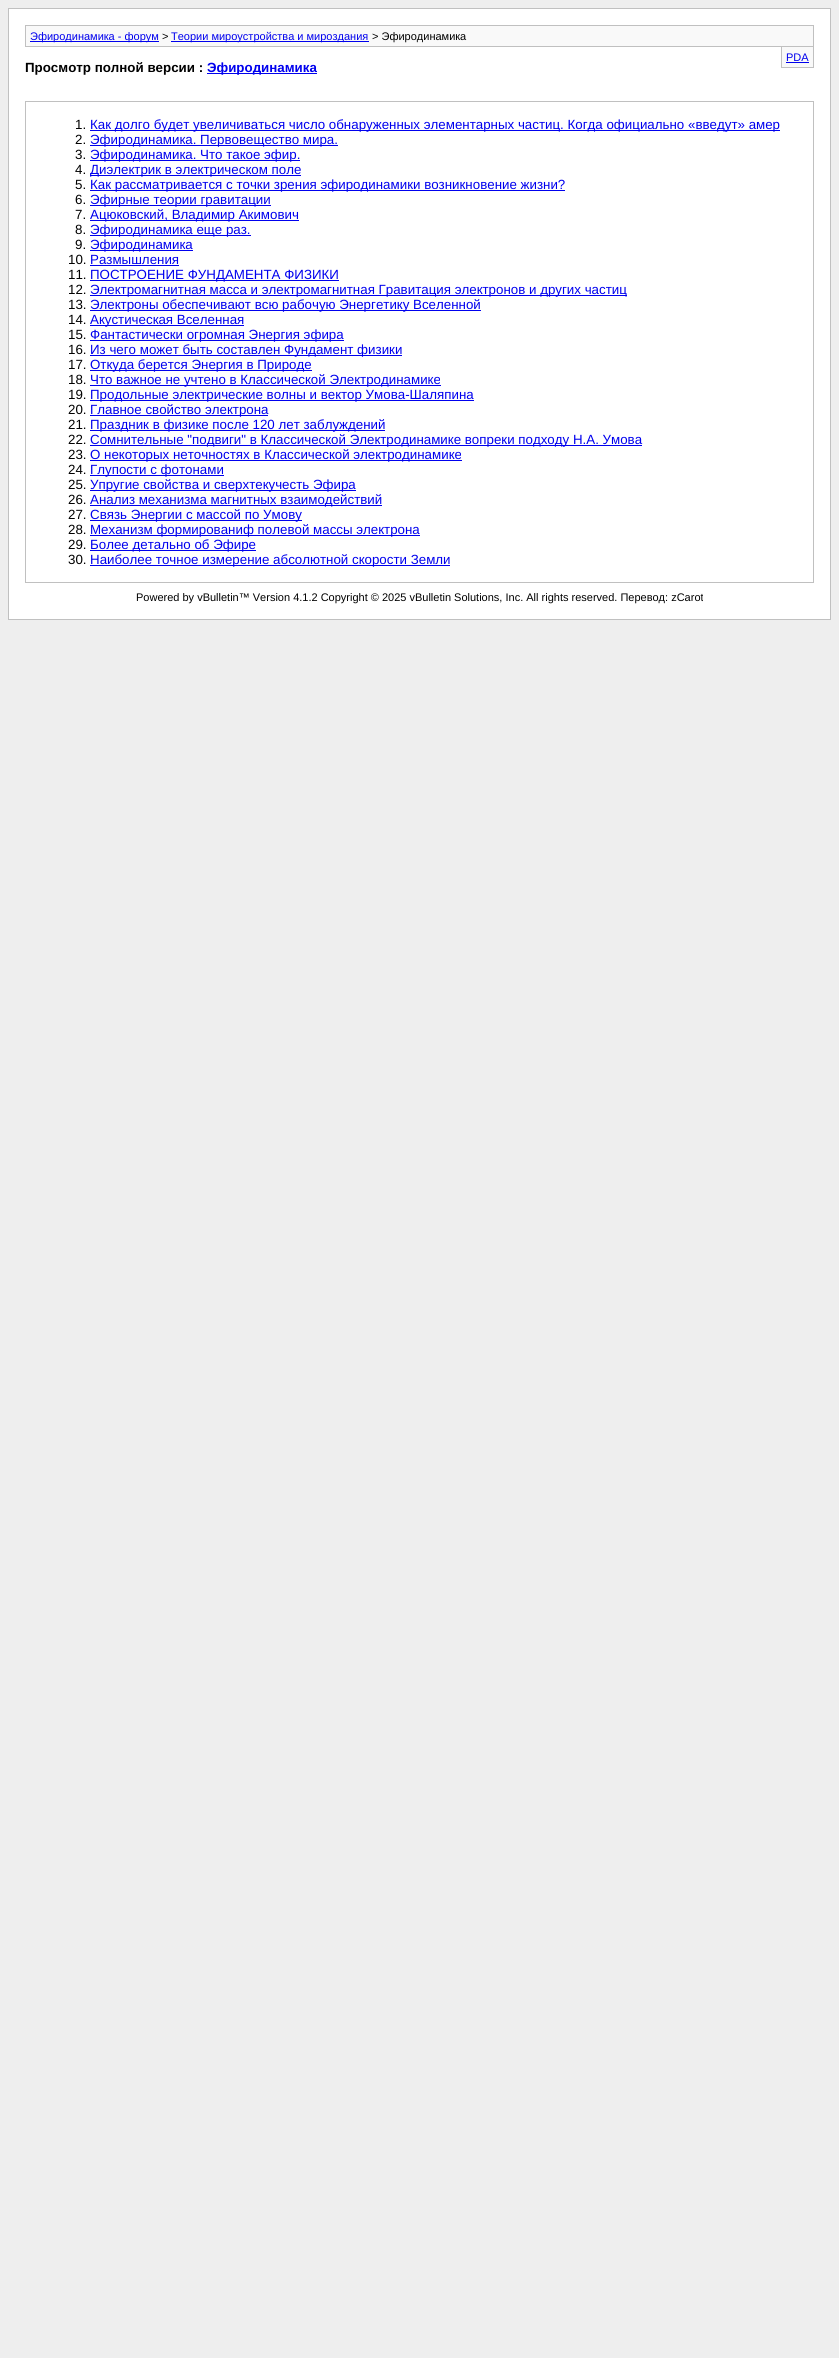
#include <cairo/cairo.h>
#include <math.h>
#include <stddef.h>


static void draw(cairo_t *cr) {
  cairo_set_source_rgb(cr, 238 / 255.0, 238 / 255.0, 238 / 255.0);
  cairo_paint(cr);
  cairo_set_source_rgb(cr, 1, 1, 1);
  cairo_rectangle(cr, 8.5, 8.5, 822, 611);
  cairo_fill_preserve(cr);
  cairo_set_source_rgb(cr, 192 / 255.0, 192 / 255.0, 192 / 255.0);
  cairo_set_line_width(cr, 1);
  cairo_stroke(cr);
  cairo_set_source_rgb(cr, 249 / 255.0, 249 / 255.0, 249 / 255.0);
  cairo_rectangle(cr, 25.5, 25.5, 788, 21);
  cairo_fill_preserve(cr);
  cairo_set_source_rgb(cr, 192 / 255.0, 192 / 255.0, 192 / 255.0);
  cairo_stroke(cr);
  cairo_set_source_rgb(cr, 0, 0, 238 / 255.0);
  cairo_rectangle(cr, 30, 41, 129, 1);
  cairo_fill(cr);
  cairo_rectangle(cr, 171, 41, 198, 1);
  cairo_fill(cr);
  cairo_set_source_rgb(cr, 249 / 255.0, 249 / 255.0, 249 / 255.0);
  cairo_rectangle(cr, 782, 47, 31, 20);
  cairo_fill(cr);
  cairo_set_source_rgb(cr, 192 / 255.0, 192 / 255.0, 192 / 255.0);
  cairo_rectangle(cr, 813, 47, 1, 21);
  cairo_fill(cr);
  cairo_rectangle(cr, 781, 67, 33, 1);
  cairo_fill(cr);
  cairo_rectangle(cr, 781, 47, 1, 21);
  cairo_fill(cr);
  cairo_set_source_rgb(cr, 0, 0, 238 / 255.0);
  cairo_rectangle(cr, 786, 62, 23, 1);
  cairo_fill(cr);
  cairo_rectangle(cr, 207, 73, 110, 1);
  cairo_fill(cr);
  cairo_rectangle(cr, 25.5, 101.5, 788, 481);
  cairo_set_source_rgb(cr, 192 / 255.0, 192 / 255.0, 192 / 255.0);
  cairo_stroke(cr);
  cairo_set_source_rgb(cr, 0, 0, 238 / 255.0);
  cairo_rectangle(cr, 90, 130, 690, 1);
  cairo_fill(cr);
  cairo_rectangle(cr, 90, 145, 248, 1);
  cairo_fill(cr);
  cairo_rectangle(cr, 90, 160, 210, 1);
  cairo_fill(cr);
  cairo_rectangle(cr, 90, 175, 211, 1);
  cairo_fill(cr);
  cairo_rectangle(cr, 90, 190, 475, 1);
  cairo_fill(cr);
  cairo_rectangle(cr, 90, 205, 181, 1);
  cairo_fill(cr);
  cairo_rectangle(cr, 90, 220, 209, 1);
  cairo_fill(cr);
  cairo_rectangle(cr, 90, 235, 161, 1);
  cairo_fill(cr);
  cairo_rectangle(cr, 90, 250, 103, 1);
  cairo_fill(cr);
  cairo_rectangle(cr, 90, 265, 89, 1);
  cairo_fill(cr);
  cairo_rectangle(cr, 90, 280, 249, 1);
  cairo_fill(cr);
  cairo_rectangle(cr, 90, 295, 537, 1);
  cairo_fill(cr);
  cairo_rectangle(cr, 90, 310, 391, 1);
  cairo_fill(cr);
  cairo_rectangle(cr, 90, 325, 154, 1);
  cairo_fill(cr);
  cairo_rectangle(cr, 90, 340, 254, 1);
  cairo_fill(cr);
  cairo_rectangle(cr, 90, 355, 312, 1);
  cairo_fill(cr);
  cairo_rectangle(cr, 90, 370, 222, 1);
  cairo_fill(cr);
  cairo_rectangle(cr, 90, 385, 351, 1);
  cairo_fill(cr);
  cairo_rectangle(cr, 90, 400, 384, 1);
  cairo_fill(cr);
  cairo_rectangle(cr, 90, 415, 178, 1);
  cairo_fill(cr);
  cairo_rectangle(cr, 90, 430, 295, 1);
  cairo_fill(cr);
  cairo_rectangle(cr, 90, 445, 552, 1);
  cairo_fill(cr);
  cairo_rectangle(cr, 90, 460, 372, 1);
  cairo_fill(cr);
  cairo_rectangle(cr, 90, 475, 134, 1);
  cairo_fill(cr);
  cairo_rectangle(cr, 90, 490, 266, 1);
  cairo_fill(cr);
  cairo_rectangle(cr, 90, 505, 292, 1);
  cairo_fill(cr);
  cairo_rectangle(cr, 90, 520, 212, 1);
  cairo_fill(cr);
  cairo_rectangle(cr, 90, 535, 330, 1);
  cairo_fill(cr);
  cairo_rectangle(cr, 90, 550, 166, 1);
  cairo_fill(cr);
  cairo_rectangle(cr, 90, 565, 360, 1);
  cairo_fill(cr);
  cairo_select_font_face(cr, "Liberation Sans", CAIRO_FONT_SLANT_NORMAL, CAIRO_FONT_WEIGHT_NORMAL);
  cairo_set_font_size(cr, 11);
  cairo_move_to(cr, 30, 40);
  cairo_show_text(cr, "Эфиродинамика - форум");
  cairo_set_source_rgb(cr, 0, 0, 0);
  cairo_move_to(cr, 162, 40);
  cairo_show_text(cr, ">");
  cairo_set_source_rgb(cr, 0, 0, 238 / 255.0);
  cairo_move_to(cr, 171, 40);
  cairo_show_text(cr, "Теории мироустройства и мироздания");
  cairo_set_source_rgb(cr, 0, 0, 0);
  cairo_move_to(cr, 372, 40);
  cairo_show_text(cr, "> Эфиродинамика");
  cairo_set_source_rgb(cr, 0, 0, 238 / 255.0);
  cairo_move_to(cr, 786, 61);
  cairo_show_text(cr, "PDA");
  cairo_select_font_face(cr, "Liberation Sans", CAIRO_FONT_SLANT_NORMAL, CAIRO_FONT_WEIGHT_BOLD);
  cairo_set_font_size(cr, 13.33);
  cairo_set_source_rgb(cr, 0, 0, 0);
  cairo_move_to(cr, 25, 72);
  cairo_show_text(cr, "Просмотр полной версии :");
  cairo_set_source_rgb(cr, 0, 0, 238 / 255.0);
  cairo_move_to(cr, 207, 72);
  cairo_show_text(cr, "Эфиродинамика");
  cairo_select_font_face(cr, "Liberation Sans", CAIRO_FONT_SLANT_NORMAL, CAIRO_FONT_WEIGHT_NORMAL);
  cairo_set_source_rgb(cr, 0, 0, 0);
  cairo_move_to(cr, 75, 129);
  cairo_show_text(cr, "1.");
  cairo_set_source_rgb(cr, 0, 0, 238 / 255.0);
  cairo_move_to(cr, 90, 129);
  cairo_show_text(cr, "Как долго будет увеличиваться число обнаруженных элементарных частиц. Когда официально «введут» амер");
  cairo_set_source_rgb(cr, 0, 0, 0);
  cairo_move_to(cr, 75, 144);
  cairo_show_text(cr, "2.");
  cairo_set_source_rgb(cr, 0, 0, 238 / 255.0);
  cairo_move_to(cr, 90, 144);
  cairo_show_text(cr, "Эфиродинамика. Первовещество мира.");
  cairo_set_source_rgb(cr, 0, 0, 0);
  cairo_move_to(cr, 75, 159);
  cairo_show_text(cr, "3.");
  cairo_set_source_rgb(cr, 0, 0, 238 / 255.0);
  cairo_move_to(cr, 90, 159);
  cairo_show_text(cr, "Эфиродинамика. Что такое эфир.");
  cairo_set_source_rgb(cr, 0, 0, 0);
  cairo_move_to(cr, 75, 174);
  cairo_show_text(cr, "4.");
  cairo_set_source_rgb(cr, 0, 0, 238 / 255.0);
  cairo_move_to(cr, 90, 174);
  cairo_show_text(cr, "Диэлектрик в электрическом поле");
  cairo_set_source_rgb(cr, 0, 0, 0);
  cairo_move_to(cr, 75, 189);
  cairo_show_text(cr, "5.");
  cairo_set_source_rgb(cr, 0, 0, 238 / 255.0);
  cairo_move_to(cr, 90, 189);
  cairo_show_text(cr, "Как рассматривается с точки зрения эфиродинамики возникновение жизни?");
  cairo_set_source_rgb(cr, 0, 0, 0);
  cairo_move_to(cr, 75, 204);
  cairo_show_text(cr, "6.");
  cairo_set_source_rgb(cr, 0, 0, 238 / 255.0);
  cairo_move_to(cr, 90, 204);
  cairo_show_text(cr, "Эфирные теории гравитации");
  cairo_set_source_rgb(cr, 0, 0, 0);
  cairo_move_to(cr, 75, 219);
  cairo_show_text(cr, "7.");
  cairo_set_source_rgb(cr, 0, 0, 238 / 255.0);
  cairo_move_to(cr, 90, 219);
  cairo_show_text(cr, "Ацюковский, Владимир Акимович");
  cairo_set_source_rgb(cr, 0, 0, 0);
  cairo_move_to(cr, 75, 234);
  cairo_show_text(cr, "8.");
  cairo_set_source_rgb(cr, 0, 0, 238 / 255.0);
  cairo_move_to(cr, 90, 234);
  cairo_show_text(cr, "Эфиродинамика еще раз.");
  cairo_set_source_rgb(cr, 0, 0, 0);
  cairo_move_to(cr, 75, 249);
  cairo_show_text(cr, "9.");
  cairo_set_source_rgb(cr, 0, 0, 238 / 255.0);
  cairo_move_to(cr, 90, 249);
  cairo_show_text(cr, "Эфиродинамика");
  cairo_set_source_rgb(cr, 0, 0, 0);
  cairo_move_to(cr, 68, 264);
  cairo_show_text(cr, "10.");
  cairo_set_source_rgb(cr, 0, 0, 238 / 255.0);
  cairo_move_to(cr, 90, 264);
  cairo_show_text(cr, "Размышления");
  cairo_set_source_rgb(cr, 0, 0, 0);
  cairo_move_to(cr, 68, 279);
  cairo_show_text(cr, "11.");
  cairo_set_source_rgb(cr, 0, 0, 238 / 255.0);
  cairo_move_to(cr, 90, 279);
  cairo_show_text(cr, "ПОСТРОЕНИЕ ФУНДАМЕНТА ФИЗИКИ");
  cairo_set_source_rgb(cr, 0, 0, 0);
  cairo_move_to(cr, 68, 294);
  cairo_show_text(cr, "12.");
  cairo_set_source_rgb(cr, 0, 0, 238 / 255.0);
  cairo_move_to(cr, 90, 294);
  cairo_show_text(cr, "Электромагнитная масса и электромагнитная Гравитация электронов и других частиц");
  cairo_set_source_rgb(cr, 0, 0, 0);
  cairo_move_to(cr, 68, 309);
  cairo_show_text(cr, "13.");
  cairo_set_source_rgb(cr, 0, 0, 238 / 255.0);
  cairo_move_to(cr, 90, 309);
  cairo_show_text(cr, "Электроны обеспечивают всю рабочую Энергетику Вселенной");
  cairo_set_source_rgb(cr, 0, 0, 0);
  cairo_move_to(cr, 68, 324);
  cairo_show_text(cr, "14.");
  cairo_set_source_rgb(cr, 0, 0, 238 / 255.0);
  cairo_move_to(cr, 90, 324);
  cairo_show_text(cr, "Акустическая Вселенная");
  cairo_set_source_rgb(cr, 0, 0, 0);
  cairo_move_to(cr, 68, 339);
  cairo_show_text(cr, "15.");
  cairo_set_source_rgb(cr, 0, 0, 238 / 255.0);
  cairo_move_to(cr, 90, 339);
  cairo_show_text(cr, "Фантастически огромная Энергия эфира");
  cairo_set_source_rgb(cr, 0, 0, 0);
  cairo_move_to(cr, 68, 354);
  cairo_show_text(cr, "16.");
  cairo_set_source_rgb(cr, 0, 0, 238 / 255.0);
  cairo_move_to(cr, 90, 354);
  cairo_show_text(cr, "Из чего может быть составлен Фундамент физики");
  cairo_set_source_rgb(cr, 0, 0, 0);
  cairo_move_to(cr, 68, 369);
  cairo_show_text(cr, "17.");
  cairo_set_source_rgb(cr, 0, 0, 238 / 255.0);
  cairo_move_to(cr, 90, 369);
  cairo_show_text(cr, "Откуда берется Энергия в Природе");
  cairo_set_source_rgb(cr, 0, 0, 0);
  cairo_move_to(cr, 68, 384);
  cairo_show_text(cr, "18.");
  cairo_set_source_rgb(cr, 0, 0, 238 / 255.0);
  cairo_move_to(cr, 90, 384);
  cairo_show_text(cr, "Что важное не учтено в Классической Электродинамике");
  cairo_set_source_rgb(cr, 0, 0, 0);
  cairo_move_to(cr, 68, 399);
  cairo_show_text(cr, "19.");
  cairo_set_source_rgb(cr, 0, 0, 238 / 255.0);
  cairo_move_to(cr, 90, 399);
  cairo_show_text(cr, "Продольные электрические волны и вектор Умова-Шаляпина");
  cairo_set_source_rgb(cr, 0, 0, 0);
  cairo_move_to(cr, 68, 414);
  cairo_show_text(cr, "20.");
  cairo_set_source_rgb(cr, 0, 0, 238 / 255.0);
  cairo_move_to(cr, 90, 414);
  cairo_show_text(cr, "Главное свойство электрона");
  cairo_set_source_rgb(cr, 0, 0, 0);
  cairo_move_to(cr, 68, 429);
  cairo_show_text(cr, "21.");
  cairo_set_source_rgb(cr, 0, 0, 238 / 255.0);
  cairo_move_to(cr, 90, 429);
  cairo_show_text(cr, "Праздник в физике после 120 лет заблуждений");
  cairo_set_source_rgb(cr, 0, 0, 0);
  cairo_move_to(cr, 68, 444);
  cairo_show_text(cr, "22.");
  cairo_set_source_rgb(cr, 0, 0, 238 / 255.0);
  cairo_move_to(cr, 90, 444);
  cairo_show_text(cr, "Сомнительные \"подвиги\" в Классической Электродинамике вопреки подходу Н.А. Умова");
  cairo_set_source_rgb(cr, 0, 0, 0);
  cairo_move_to(cr, 68, 459);
  cairo_show_text(cr, "23.");
  cairo_set_source_rgb(cr, 0, 0, 238 / 255.0);
  cairo_move_to(cr, 90, 459);
  cairo_show_text(cr, "О некоторых неточностях в Классической электродинамике");
  cairo_set_source_rgb(cr, 0, 0, 0);
  cairo_move_to(cr, 68, 474);
  cairo_show_text(cr, "24.");
  cairo_set_source_rgb(cr, 0, 0, 238 / 255.0);
  cairo_move_to(cr, 90, 474);
  cairo_show_text(cr, "Глупости с фотонами");
  cairo_set_source_rgb(cr, 0, 0, 0);
  cairo_move_to(cr, 68, 489);
  cairo_show_text(cr, "25.");
  cairo_set_source_rgb(cr, 0, 0, 238 / 255.0);
  cairo_move_to(cr, 90, 489);
  cairo_show_text(cr, "Упругие свойства и сверхтекучесть Эфира");
  cairo_set_source_rgb(cr, 0, 0, 0);
  cairo_move_to(cr, 68, 504);
  cairo_show_text(cr, "26.");
  cairo_set_source_rgb(cr, 0, 0, 238 / 255.0);
  cairo_move_to(cr, 90, 504);
  cairo_show_text(cr, "Анализ механизма магнитных взаимодействий");
  cairo_set_source_rgb(cr, 0, 0, 0);
  cairo_move_to(cr, 68, 519);
  cairo_show_text(cr, "27.");
  cairo_set_source_rgb(cr, 0, 0, 238 / 255.0);
  cairo_move_to(cr, 90, 519);
  cairo_show_text(cr, "Связь Энергии с массой по Умову");
  cairo_set_source_rgb(cr, 0, 0, 0);
  cairo_move_to(cr, 68, 534);
  cairo_show_text(cr, "28.");
  cairo_set_source_rgb(cr, 0, 0, 238 / 255.0);
  cairo_move_to(cr, 90, 534);
  cairo_show_text(cr, "Механизм формированиф полевой массы электрона");
  cairo_set_source_rgb(cr, 0, 0, 0);
  cairo_move_to(cr, 68, 549);
  cairo_show_text(cr, "29.");
  cairo_set_source_rgb(cr, 0, 0, 238 / 255.0);
  cairo_move_to(cr, 90, 549);
  cairo_show_text(cr, "Более детально об Эфире");
  cairo_set_source_rgb(cr, 0, 0, 0);
  cairo_move_to(cr, 68, 564);
  cairo_show_text(cr, "30.");
  cairo_set_source_rgb(cr, 0, 0, 238 / 255.0);
  cairo_move_to(cr, 90, 564);
  cairo_show_text(cr, "Наиболее точное измерение абсолютной скорости Земли");
  cairo_set_font_size(cr, 11);
  cairo_set_source_rgb(cr, 0, 0, 0);
  cairo_move_to(cr, 136, 601);
  cairo_show_text(cr, "Powered by vBulletin™ Version 4.1.2 Copyright © 2025 vBulletin Solutions, Inc. All rights reserved. Перевод: zCarot");
}

int main(void) {
  cairo_surface_t *surface = cairo_image_surface_create(CAIRO_FORMAT_RGB24, 839, 2358);
  cairo_t *cr = cairo_create(surface);
  cairo_font_options_t *options = cairo_font_options_create();
  cairo_font_options_set_hint_metrics(options, CAIRO_HINT_METRICS_OFF);
  cairo_font_options_set_hint_style(options, CAIRO_HINT_STYLE_NONE);
  cairo_set_font_options(cr, options);
  cairo_set_miter_limit(cr, 4);
  draw(cr);
  cairo_surface_write_to_png(surface, "out.png");
  cairo_font_options_destroy(options);
  cairo_destroy(cr);
  cairo_surface_destroy(surface);
  return 0;
}
